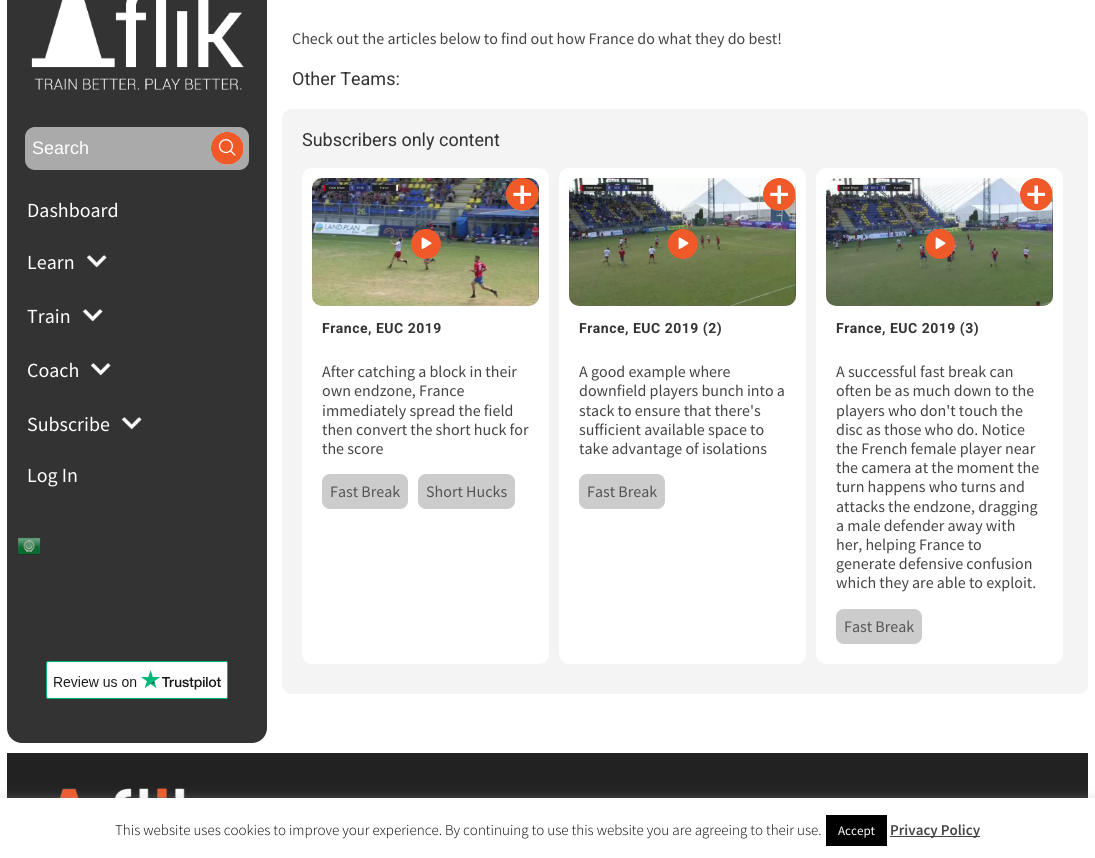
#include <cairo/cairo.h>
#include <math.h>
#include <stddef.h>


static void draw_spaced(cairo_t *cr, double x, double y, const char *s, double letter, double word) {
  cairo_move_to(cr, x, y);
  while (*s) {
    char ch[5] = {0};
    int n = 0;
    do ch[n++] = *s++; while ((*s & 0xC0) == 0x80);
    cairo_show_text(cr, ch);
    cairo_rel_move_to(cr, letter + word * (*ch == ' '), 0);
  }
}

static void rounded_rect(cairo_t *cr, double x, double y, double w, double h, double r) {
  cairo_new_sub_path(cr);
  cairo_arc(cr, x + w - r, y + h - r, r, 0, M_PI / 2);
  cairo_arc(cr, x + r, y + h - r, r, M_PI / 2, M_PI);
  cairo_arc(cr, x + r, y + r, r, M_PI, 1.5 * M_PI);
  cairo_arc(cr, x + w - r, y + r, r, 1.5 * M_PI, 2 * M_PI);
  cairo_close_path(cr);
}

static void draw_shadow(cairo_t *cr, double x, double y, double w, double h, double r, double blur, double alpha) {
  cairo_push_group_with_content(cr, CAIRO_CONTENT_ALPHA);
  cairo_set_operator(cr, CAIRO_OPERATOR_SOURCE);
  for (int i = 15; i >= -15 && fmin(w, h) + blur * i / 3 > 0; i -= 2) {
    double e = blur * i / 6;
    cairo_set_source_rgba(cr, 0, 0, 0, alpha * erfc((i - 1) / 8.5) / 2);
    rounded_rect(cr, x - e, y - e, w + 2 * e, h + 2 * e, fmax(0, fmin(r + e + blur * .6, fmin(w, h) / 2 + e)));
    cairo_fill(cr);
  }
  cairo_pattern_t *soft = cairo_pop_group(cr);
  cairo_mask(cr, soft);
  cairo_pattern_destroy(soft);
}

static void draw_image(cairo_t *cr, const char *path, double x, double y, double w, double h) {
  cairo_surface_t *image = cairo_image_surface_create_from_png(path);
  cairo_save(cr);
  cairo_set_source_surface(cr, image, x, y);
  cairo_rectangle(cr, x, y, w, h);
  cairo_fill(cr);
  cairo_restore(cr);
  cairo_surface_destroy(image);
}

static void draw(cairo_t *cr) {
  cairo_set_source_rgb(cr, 1, 1, 1);
  cairo_paint(cr);
  cairo_set_source_rgb(cr, 51 / 255.0, 51 / 255.0, 51 / 255.0);
  rounded_rect(cr, 7, -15, 260, 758, 15);
  cairo_fill(cr);
  draw_image(cr, "images/1.png", 31, 0, 213, 90);
  cairo_set_source_rgb(cr, 170 / 255.0, 170 / 255.0, 170 / 255.0);
  rounded_rect(cr, 25, 127, 224, 43, 10);
  cairo_fill(cr);
  draw_image(cr, "images/2.png", 211, 132, 33, 33);
  draw_image(cr, "images/3.png", 86, 255, 21, 13);
  draw_image(cr, "images/4.png", 82, 309, 21, 13);
  draw_image(cr, "images/3.png", 90, 363, 21, 13);
  draw_image(cr, "images/4.png", 121, 417, 21, 13);
  draw_image(cr, "images/5.png", 17, 537, 24, 18);
  draw_image(cr, "images/6.png", 46, 661, 182, 38);
  cairo_set_source_rgb(cr, 244 / 255.0, 244 / 255.0, 244 / 255.0);
  rounded_rect(cr, 282, 109, 806, 585, 10);
  cairo_fill(cr);
  cairo_set_source_rgb(cr, 1, 1, 1);
  rounded_rect(cr, 302, 168, 247, 496, 10);
  cairo_fill(cr);
  draw_image(cr, "images/7.png", 312, 178, 227, 128);
  draw_image(cr, "images/8.png", 506, 178, 33, 33);
  draw_image(cr, "images/9.png", 411, 229, 30, 30);
  cairo_set_source_rgb(cr, 204 / 255.0, 204 / 255.0, 204 / 255.0);
  rounded_rect(cr, 322, 474, 86, 35, 8);
  cairo_fill(cr);
  rounded_rect(cr, 418, 474, 97, 35, 8);
  cairo_fill(cr);
  cairo_set_source_rgb(cr, 1, 1, 1);
  rounded_rect(cr, 559, 168, 247, 496, 10);
  cairo_fill(cr);
  draw_image(cr, "images/10.png", 569, 178, 227, 128);
  draw_image(cr, "images/11.png", 763, 178, 33, 33);
  draw_image(cr, "images/12.png", 668, 229, 30, 30);
  cairo_set_source_rgb(cr, 204 / 255.0, 204 / 255.0, 204 / 255.0);
  rounded_rect(cr, 579, 474, 86, 35, 8);
  cairo_fill(cr);
  cairo_set_source_rgb(cr, 1, 1, 1);
  rounded_rect(cr, 816, 168, 247, 496, 10);
  cairo_fill(cr);
  draw_image(cr, "images/13.png", 826, 178, 227, 128);
  draw_image(cr, "images/14.png", 1020, 178, 33, 33);
  draw_image(cr, "images/15.png", 925, 229, 30, 30);
  cairo_set_source_rgb(cr, 204 / 255.0, 204 / 255.0, 204 / 255.0);
  rounded_rect(cr, 836, 609, 86, 35, 8);
  cairo_fill(cr);
  cairo_set_source_rgb(cr, 34 / 255.0, 34 / 255.0, 34 / 255.0);
  cairo_rectangle(cr, 7, 753, 1081, 45);
  cairo_fill(cr);
  draw_image(cr, "images/16.png", 33, 788, 182, 10);
  cairo_set_source_rgb(cr, 172 / 255.0, 171 / 255.0, 171 / 255.0);
  draw_shadow(cr, 0, 797, 1095, 60, 0, 5, 0.3);
  cairo_set_source_rgb(cr, 1, 1, 1);
  cairo_rectangle(cr, 0, 798, 1095, 60);
  cairo_fill(cr);
  cairo_set_source_rgb(cr, 0, 0, 0);
  cairo_rectangle(cr, 826, 815, 61, 31);
  cairo_fill(cr);
  cairo_set_source_rgb(cr, 68 / 255.0, 68 / 255.0, 68 / 255.0);
  cairo_rectangle(cr, 890, 836, 90, 1);
  cairo_fill(cr);
  cairo_select_font_face(cr, "Liberation Sans", CAIRO_FONT_SLANT_NORMAL, CAIRO_FONT_WEIGHT_NORMAL);
  cairo_set_font_size(cr, 18);
  cairo_set_source_rgb(cr, 1, 1, 1);
  cairo_move_to(cr, 32, 154);
  cairo_show_text(cr, "Search");
  cairo_select_font_face(cr, "Source Sans Pro", CAIRO_FONT_SLANT_NORMAL, CAIRO_FONT_WEIGHT_NORMAL);
  cairo_set_font_size(cr, 20);
  cairo_move_to(cr, 27, 217);
  cairo_show_text(cr, "Dashboard");
  cairo_move_to(cr, 27, 269);
  cairo_show_text(cr, "Learn");
  cairo_move_to(cr, 27, 323);
  cairo_show_text(cr, "Train");
  cairo_move_to(cr, 27, 377);
  cairo_show_text(cr, "Coach");
  cairo_move_to(cr, 27, 431);
  cairo_show_text(cr, "Subscribe");
  cairo_move_to(cr, 27, 482);
  cairo_show_text(cr, "Log In");
  cairo_set_font_size(cr, 16);
  cairo_set_source_rgb(cr, 68 / 255.0, 68 / 255.0, 68 / 255.0);
  cairo_move_to(cr, 292, 44);
  cairo_show_text(cr, "Check out the articles below to find out how France do what they do best!");
  cairo_select_font_face(cr, "Roboto", CAIRO_FONT_SLANT_NORMAL, CAIRO_FONT_WEIGHT_NORMAL);
  cairo_set_font_size(cr, 18);
  cairo_set_source_rgb(cr, 51 / 255.0, 51 / 255.0, 51 / 255.0);
  cairo_move_to(cr, 292, 85);
  cairo_show_text(cr, "Other Teams:");
  cairo_move_to(cr, 302, 146);
  cairo_show_text(cr, "Subscribers only content");
  cairo_select_font_face(cr, "Roboto", CAIRO_FONT_SLANT_NORMAL, CAIRO_FONT_WEIGHT_BOLD);
  cairo_set_font_size(cr, 14);
  draw_spaced(cr, 322, 333, "France, EUC 2019", 0.5, 0);
  cairo_select_font_face(cr, "Source Sans Pro", CAIRO_FONT_SLANT_NORMAL, CAIRO_FONT_WEIGHT_NORMAL);
  cairo_set_font_size(cr, 16);
  cairo_set_source_rgb(cr, 68 / 255.0, 68 / 255.0, 68 / 255.0);
  cairo_move_to(cr, 322, 377);
  cairo_show_text(cr, "After catching a block in their");
  cairo_move_to(cr, 322, 396);
  cairo_show_text(cr, "own endzone, France");
  cairo_move_to(cr, 322, 416);
  cairo_show_text(cr, "immediately spread the field");
  cairo_move_to(cr, 322, 435);
  cairo_show_text(cr, "then convert the short huck for");
  cairo_move_to(cr, 322, 454);
  cairo_show_text(cr, "the score");
  cairo_set_source_rgb(cr, 85 / 255.0, 85 / 255.0, 85 / 255.0);
  cairo_move_to(cr, 330, 497);
  cairo_show_text(cr, "Fast Break");
  cairo_move_to(cr, 426, 497);
  cairo_show_text(cr, "Short Hucks");
  cairo_select_font_face(cr, "Roboto", CAIRO_FONT_SLANT_NORMAL, CAIRO_FONT_WEIGHT_BOLD);
  cairo_set_font_size(cr, 14);
  cairo_set_source_rgb(cr, 51 / 255.0, 51 / 255.0, 51 / 255.0);
  draw_spaced(cr, 579, 333, "France, EUC 2019 (2)", 0.5, 0);
  cairo_select_font_face(cr, "Source Sans Pro", CAIRO_FONT_SLANT_NORMAL, CAIRO_FONT_WEIGHT_NORMAL);
  cairo_set_font_size(cr, 16);
  cairo_set_source_rgb(cr, 68 / 255.0, 68 / 255.0, 68 / 255.0);
  cairo_move_to(cr, 579, 377);
  cairo_show_text(cr, "A good example where");
  cairo_move_to(cr, 579, 396);
  cairo_show_text(cr, "downfield players bunch into a");
  cairo_move_to(cr, 579, 416);
  cairo_show_text(cr, "stack to ensure that there's");
  cairo_move_to(cr, 579, 435);
  cairo_show_text(cr, "sufficient available space to");
  cairo_move_to(cr, 579, 454);
  cairo_show_text(cr, "take advantage of isolations");
  cairo_set_source_rgb(cr, 85 / 255.0, 85 / 255.0, 85 / 255.0);
  cairo_move_to(cr, 587, 497);
  cairo_show_text(cr, "Fast Break");
  cairo_select_font_face(cr, "Roboto", CAIRO_FONT_SLANT_NORMAL, CAIRO_FONT_WEIGHT_BOLD);
  cairo_set_font_size(cr, 14);
  cairo_set_source_rgb(cr, 51 / 255.0, 51 / 255.0, 51 / 255.0);
  draw_spaced(cr, 836, 333, "France, EUC 2019 (3)", 0.5, 0);
  cairo_select_font_face(cr, "Source Sans Pro", CAIRO_FONT_SLANT_NORMAL, CAIRO_FONT_WEIGHT_NORMAL);
  cairo_set_font_size(cr, 16);
  cairo_set_source_rgb(cr, 68 / 255.0, 68 / 255.0, 68 / 255.0);
  cairo_move_to(cr, 836, 377);
  cairo_show_text(cr, "A successful fast break can");
  cairo_move_to(cr, 836, 396);
  cairo_show_text(cr, "often be as much down to the");
  cairo_move_to(cr, 836, 416);
  cairo_show_text(cr, "players who don't touch the");
  cairo_move_to(cr, 836, 435);
  cairo_show_text(cr, "disc as those who do. Notice");
  cairo_move_to(cr, 836, 454);
  cairo_show_text(cr, "the French female player near");
  cairo_move_to(cr, 836, 473);
  cairo_show_text(cr, "the camera at the moment the");
  cairo_move_to(cr, 836, 492);
  cairo_show_text(cr, "turn happens who turns and");
  cairo_move_to(cr, 836, 512);
  cairo_show_text(cr, "attacks the endzone, dragging");
  cairo_move_to(cr, 836, 531);
  cairo_show_text(cr, "a male defender away with");
  cairo_move_to(cr, 836, 550);
  cairo_show_text(cr, "her, helping France to");
  cairo_move_to(cr, 836, 569);
  cairo_show_text(cr, "generate defensive confusion");
  cairo_move_to(cr, 836, 588);
  cairo_show_text(cr, "which they are able to exploit.");
  cairo_set_source_rgb(cr, 85 / 255.0, 85 / 255.0, 85 / 255.0);
  cairo_move_to(cr, 844, 632);
  cairo_show_text(cr, "Fast Break");
  cairo_select_font_face(cr, "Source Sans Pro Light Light", CAIRO_FONT_SLANT_NORMAL, CAIRO_FONT_WEIGHT_NORMAL);
  cairo_set_font_size(cr, 15);
  cairo_set_source_rgb(cr, 0, 0, 0);
  cairo_move_to(cr, 115, 835);
  cairo_show_text(cr, "This website uses cookies to improve your experience. By continuing to use this website you are agreeing to their use.");
  cairo_select_font_face(cr, "Source Sans Pro", CAIRO_FONT_SLANT_NORMAL, CAIRO_FONT_WEIGHT_NORMAL);
  cairo_set_font_size(cr, 13);
  cairo_set_source_rgb(cr, 1, 1, 1);
  cairo_move_to(cr, 838, 835);
  cairo_show_text(cr, "Accept");
  cairo_select_font_face(cr, "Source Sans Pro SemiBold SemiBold", CAIRO_FONT_SLANT_NORMAL, CAIRO_FONT_WEIGHT_NORMAL);
  cairo_set_font_size(cr, 15);
  cairo_set_source_rgb(cr, 68 / 255.0, 68 / 255.0, 68 / 255.0);
  cairo_move_to(cr, 890, 835);
  cairo_show_text(cr, "Privacy Policy");
}

int main(void) {
  cairo_surface_t *surface = cairo_image_surface_create(CAIRO_FORMAT_RGB24, 1095, 858);
  cairo_t *cr = cairo_create(surface);
  cairo_font_options_t *options = cairo_font_options_create();
  cairo_font_options_set_hint_metrics(options, CAIRO_HINT_METRICS_OFF);
  cairo_font_options_set_hint_style(options, CAIRO_HINT_STYLE_NONE);
  cairo_set_font_options(cr, options);
  cairo_set_miter_limit(cr, 4);
  draw(cr);
  cairo_surface_write_to_png(surface, "out.png");
  cairo_font_options_destroy(options);
  cairo_destroy(cr);
  cairo_surface_destroy(surface);
  return 0;
}
